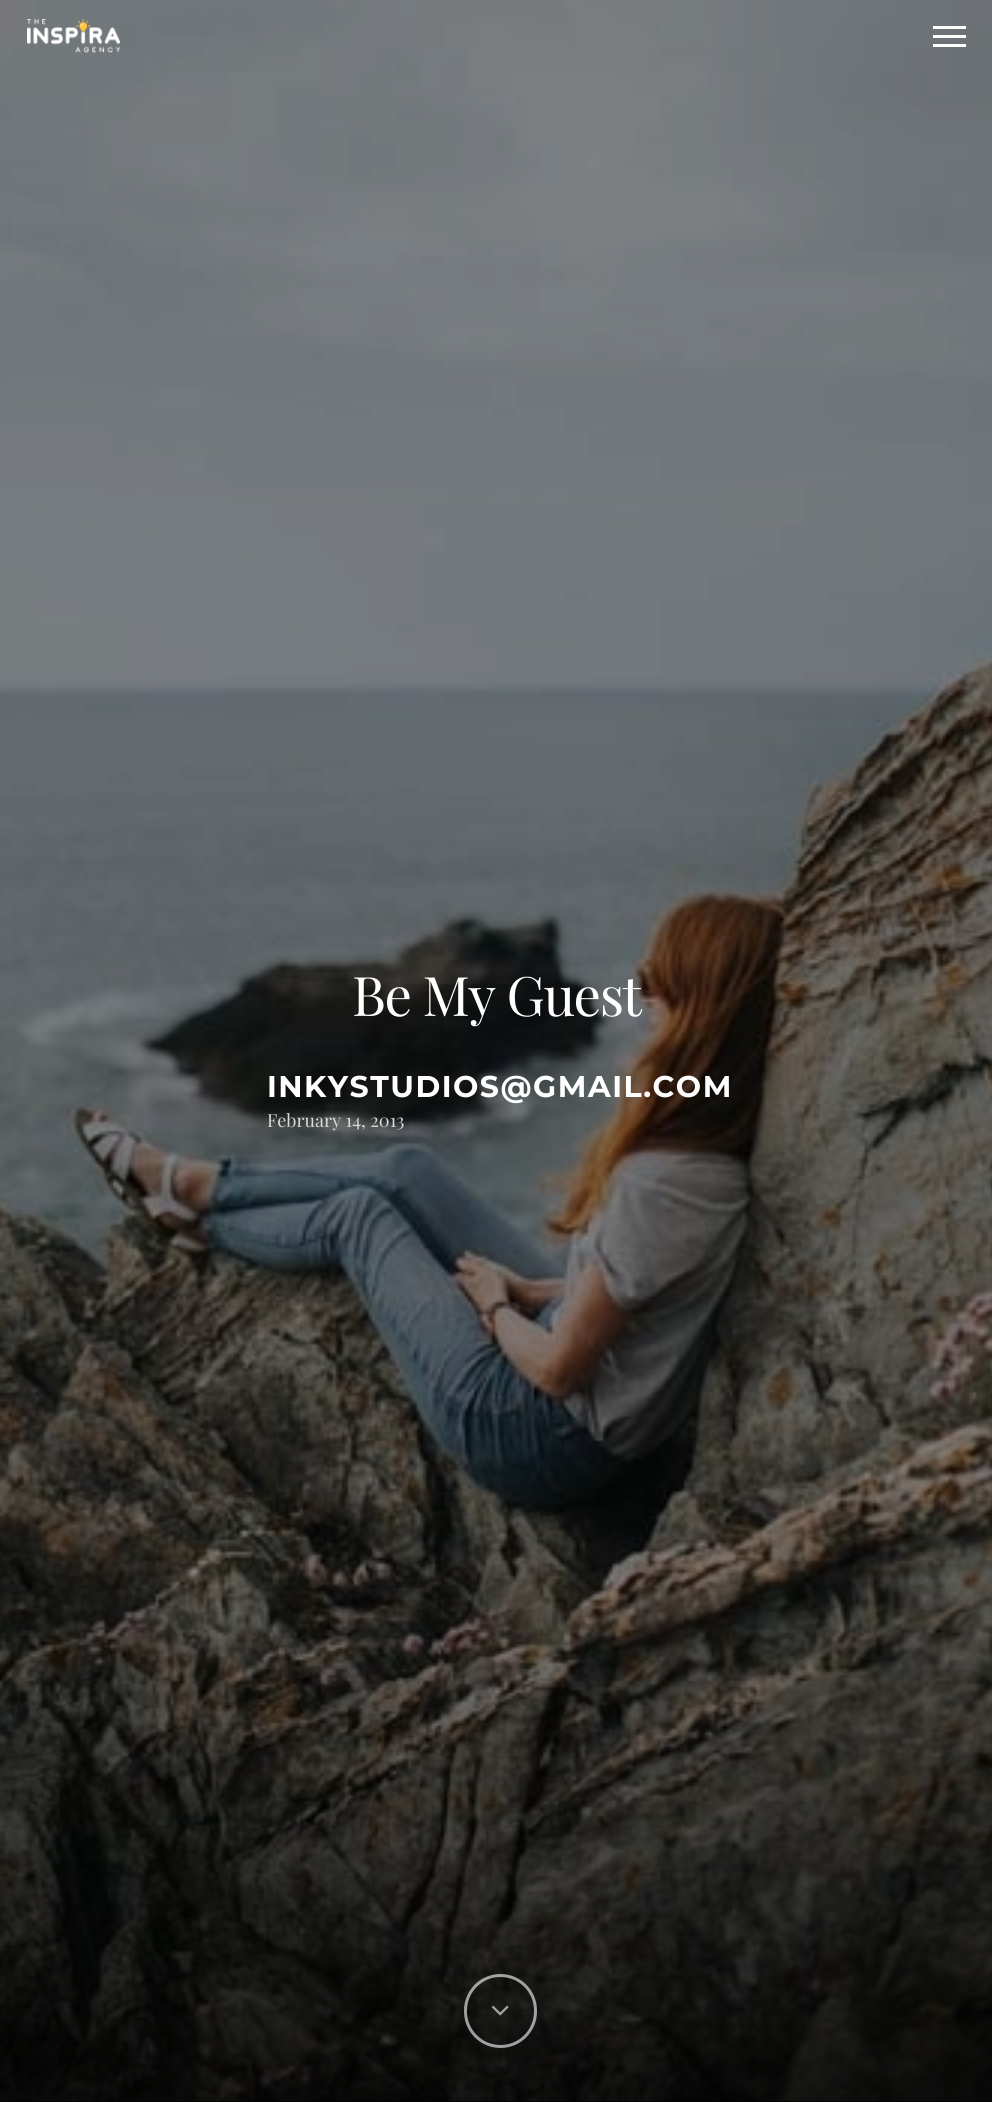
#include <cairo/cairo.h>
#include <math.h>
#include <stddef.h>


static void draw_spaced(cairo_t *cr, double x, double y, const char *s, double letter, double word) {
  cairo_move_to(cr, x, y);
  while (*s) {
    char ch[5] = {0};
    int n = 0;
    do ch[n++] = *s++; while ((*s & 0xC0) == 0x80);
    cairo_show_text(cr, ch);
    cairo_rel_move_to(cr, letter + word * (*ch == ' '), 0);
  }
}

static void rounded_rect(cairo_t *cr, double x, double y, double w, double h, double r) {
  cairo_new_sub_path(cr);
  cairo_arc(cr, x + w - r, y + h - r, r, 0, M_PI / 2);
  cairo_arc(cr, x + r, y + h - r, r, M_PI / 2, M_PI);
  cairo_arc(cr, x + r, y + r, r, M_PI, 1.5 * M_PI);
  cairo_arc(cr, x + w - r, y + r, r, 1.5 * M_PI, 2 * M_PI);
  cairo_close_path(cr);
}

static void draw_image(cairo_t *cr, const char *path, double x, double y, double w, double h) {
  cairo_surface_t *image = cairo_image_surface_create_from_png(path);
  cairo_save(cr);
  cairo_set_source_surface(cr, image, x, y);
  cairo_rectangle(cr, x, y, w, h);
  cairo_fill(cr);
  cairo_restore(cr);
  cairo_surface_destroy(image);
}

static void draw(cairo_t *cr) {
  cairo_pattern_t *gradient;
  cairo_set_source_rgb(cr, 0, 0, 0);
  cairo_paint(cr);
  draw_image(cr, "images/2.png", 0, 0, 992, 2102);
  draw_image(cr, "images/1.png", 27, 19, 93, 34);
  cairo_set_source_rgb(cr, 1, 1, 1);
  cairo_rectangle(cr, 933, 26, 33, 3);
  cairo_fill(cr);
  cairo_rectangle(cr, 933, 44, 33, 3);
  cairo_fill(cr);
  cairo_rectangle(cr, 933, 35, 33, 3);
  cairo_fill(cr);
  gradient = cairo_pattern_create_linear(497, 1575, 497, 2102);
  cairo_pattern_add_color_stop_rgba(gradient, 0, 153 / 255.0, 153 / 255.0, 153 / 255.0, 0);
  cairo_pattern_add_color_stop_rgba(gradient, 0.01, 0, 0, 0, 0);
  cairo_pattern_add_color_stop_rgba(gradient, 0.16, 0, 0, 0, 0.06);
  cairo_pattern_add_color_stop_rgba(gradient, 0.75, 0, 0, 0, 0.4);
  cairo_pattern_add_color_stop_rgba(gradient, 1, 0, 0, 0, 0.6);
  cairo_set_source(cr, gradient);
  cairo_pattern_destroy(gradient);
  cairo_rectangle(cr, 0, 1610, 992, 492);
  cairo_fill(cr);
  rounded_rect(cr, 465.5, 1975.5, 70, 71, 35);
  cairo_set_source_rgba(cr, 1, 1, 1, 0.6);
  cairo_set_line_width(cr, 3);
  cairo_stroke(cr);
  draw_image(cr, "images/3.png", 491, 2005, 18, 11);
  cairo_select_font_face(cr, "Playfair Display", CAIRO_FONT_SLANT_NORMAL, CAIRO_FONT_WEIGHT_NORMAL);
  cairo_set_font_size(cr, 54.5);
  cairo_set_source_rgb(cr, 1, 1, 1);
  draw_spaced(cr, 352, 1016, "Be My Guest", -1.5, 0);
  cairo_select_font_face(cr, "Montserrat Thin", CAIRO_FONT_SLANT_NORMAL, CAIRO_FONT_WEIGHT_NORMAL);
  cairo_set_font_size(cr, 30);
  draw_spaced(cr, 267, 1097, "INKYSTUDIOS@GMAIL.COM", 1.5, 0);
  cairo_select_font_face(cr, "Playfair Display", CAIRO_FONT_SLANT_NORMAL, CAIRO_FONT_WEIGHT_NORMAL);
  cairo_set_font_size(cr, 18);
  cairo_set_source_rgb(cr, 217 / 255.0, 218 / 255.0, 218 / 255.0);
  cairo_move_to(cr, 267, 1127);
  cairo_show_text(cr, "February 14, 2013");
}

int main(void) {
  cairo_surface_t *surface = cairo_image_surface_create(CAIRO_FORMAT_RGB24, 992, 2102);
  cairo_t *cr = cairo_create(surface);
  cairo_font_options_t *options = cairo_font_options_create();
  cairo_font_options_set_hint_metrics(options, CAIRO_HINT_METRICS_OFF);
  cairo_font_options_set_hint_style(options, CAIRO_HINT_STYLE_NONE);
  cairo_set_font_options(cr, options);
  cairo_set_miter_limit(cr, 4);
  draw(cr);
  cairo_surface_write_to_png(surface, "out.png");
  cairo_font_options_destroy(options);
  cairo_destroy(cr);
  cairo_surface_destroy(surface);
  return 0;
}
